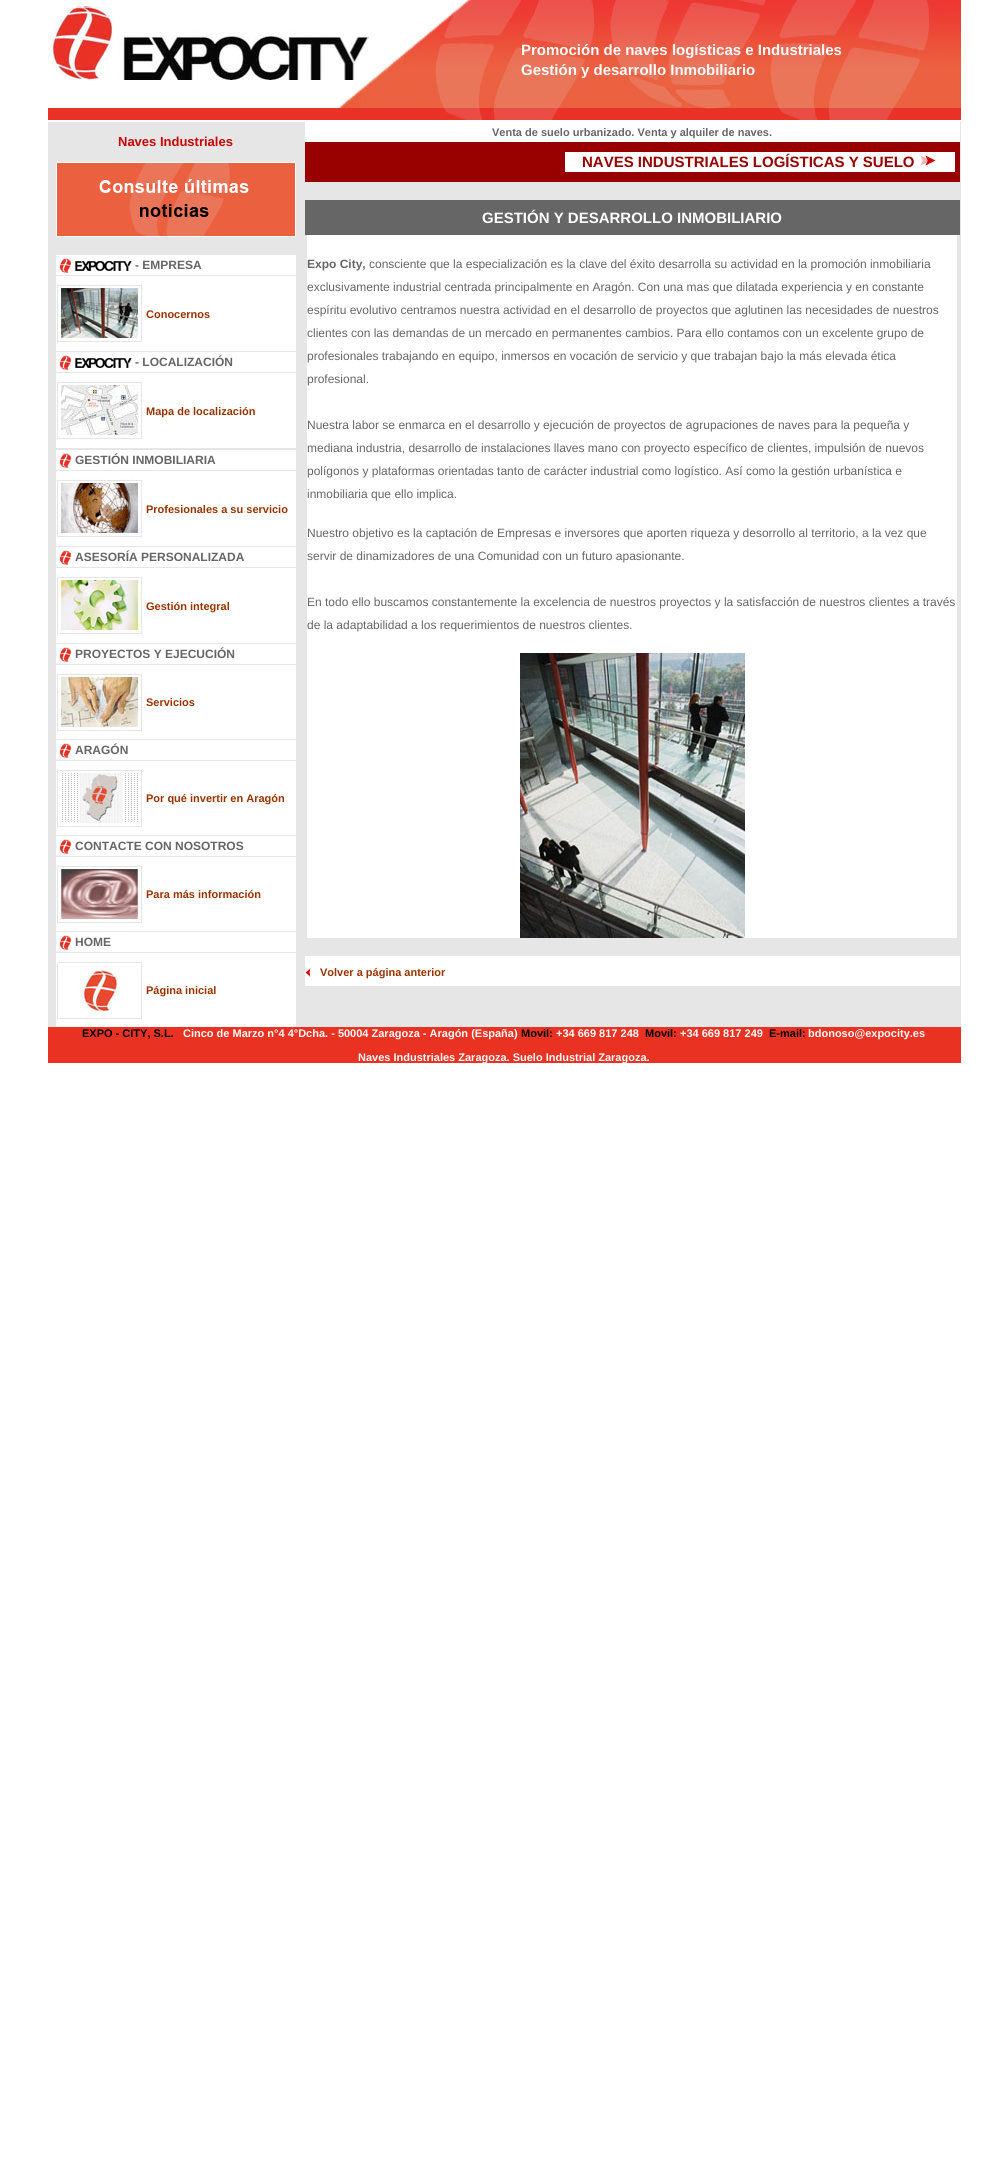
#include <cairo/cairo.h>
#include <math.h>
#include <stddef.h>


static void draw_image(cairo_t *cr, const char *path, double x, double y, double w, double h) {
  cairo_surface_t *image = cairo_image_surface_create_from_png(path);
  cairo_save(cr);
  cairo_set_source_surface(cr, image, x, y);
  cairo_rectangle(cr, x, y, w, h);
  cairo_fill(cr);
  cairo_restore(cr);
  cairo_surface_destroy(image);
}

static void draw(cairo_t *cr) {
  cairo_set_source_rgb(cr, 1, 1, 1);
  cairo_paint(cr);
  draw_image(cr, "images/1.png", 48, 0, 913, 120);
  cairo_set_source_rgb(cr, 230 / 255.0, 230 / 255.0, 230 / 255.0);
  cairo_rectangle(cr, 48, 122, 913, 905);
  cairo_fill(cr);
  draw_image(cr, "images/2.png", 56, 162, 240, 75);
  cairo_set_source_rgb(cr, 1, 1, 1);
  cairo_rectangle(cr, 56, 255, 240, 96);
  cairo_fill(cr);
  draw_image(cr, "images/3.png", 59, 258, 12, 15);
  draw_image(cr, "images/4.png", 75, 261, 57, 10);
  cairo_set_source_rgb(cr, 230 / 255.0, 230 / 255.0, 230 / 255.0);
  cairo_rectangle(cr, 56, 275, 240, 1);
  cairo_fill(cr);
  draw_image(cr, "images/5.png", 56, 284, 87, 59);
  cairo_set_source_rgb(cr, 1, 1, 1);
  cairo_rectangle(cr, 56, 352, 240, 96);
  cairo_fill(cr);
  draw_image(cr, "images/3.png", 59, 355, 12, 15);
  draw_image(cr, "images/4.png", 75, 358, 57, 10);
  cairo_set_source_rgb(cr, 230 / 255.0, 230 / 255.0, 230 / 255.0);
  cairo_rectangle(cr, 56, 372, 240, 1);
  cairo_fill(cr);
  draw_image(cr, "images/6.png", 56, 381, 87, 59);
  cairo_set_source_rgb(cr, 1, 1, 1);
  cairo_rectangle(cr, 56, 450, 240, 96);
  cairo_fill(cr);
  draw_image(cr, "images/3.png", 59, 453, 12, 15);
  cairo_set_source_rgb(cr, 230 / 255.0, 230 / 255.0, 230 / 255.0);
  cairo_rectangle(cr, 56, 470, 240, 1);
  cairo_fill(cr);
  draw_image(cr, "images/7.png", 56, 479, 87, 59);
  cairo_set_source_rgb(cr, 1, 1, 1);
  cairo_rectangle(cr, 56, 547, 240, 96);
  cairo_fill(cr);
  draw_image(cr, "images/3.png", 59, 550, 12, 15);
  cairo_set_source_rgb(cr, 230 / 255.0, 230 / 255.0, 230 / 255.0);
  cairo_rectangle(cr, 56, 567, 240, 1);
  cairo_fill(cr);
  draw_image(cr, "images/8.png", 56, 576, 87, 59);
  cairo_set_source_rgb(cr, 1, 1, 1);
  cairo_rectangle(cr, 56, 644, 240, 95);
  cairo_fill(cr);
  draw_image(cr, "images/3.png", 59, 647, 12, 15);
  cairo_set_source_rgb(cr, 230 / 255.0, 230 / 255.0, 230 / 255.0);
  cairo_rectangle(cr, 56, 664, 240, 1);
  cairo_fill(cr);
  draw_image(cr, "images/9.png", 56, 673, 87, 59);
  cairo_set_source_rgb(cr, 1, 1, 1);
  cairo_rectangle(cr, 56, 740, 240, 95);
  cairo_fill(cr);
  draw_image(cr, "images/3.png", 59, 743, 12, 15);
  cairo_set_source_rgb(cr, 230 / 255.0, 230 / 255.0, 230 / 255.0);
  cairo_rectangle(cr, 56, 760, 240, 1);
  cairo_fill(cr);
  draw_image(cr, "images/10.png", 56, 769, 87, 59);
  cairo_set_source_rgb(cr, 1, 1, 1);
  cairo_rectangle(cr, 56, 836, 240, 95);
  cairo_fill(cr);
  draw_image(cr, "images/3.png", 59, 839, 12, 15);
  cairo_set_source_rgb(cr, 230 / 255.0, 230 / 255.0, 230 / 255.0);
  cairo_rectangle(cr, 56, 856, 240, 1);
  cairo_fill(cr);
  draw_image(cr, "images/11.png", 56, 865, 87, 59);
  cairo_set_source_rgb(cr, 1, 1, 1);
  cairo_rectangle(cr, 56, 932, 240, 95);
  cairo_fill(cr);
  draw_image(cr, "images/3.png", 59, 935, 12, 15);
  cairo_set_source_rgb(cr, 230 / 255.0, 230 / 255.0, 230 / 255.0);
  cairo_rectangle(cr, 56, 952, 240, 1);
  cairo_fill(cr);
  draw_image(cr, "images/12.png", 56, 961, 87, 59);
  cairo_set_source_rgb(cr, 153 / 255.0, 0, 0);
  cairo_rectangle(cr, 305, 142, 655, 40);
  cairo_fill(cr);
  cairo_set_source_rgb(cr, 1, 1, 1);
  cairo_rectangle(cr, 305, 122, 655, 20);
  cairo_fill(cr);
  cairo_rectangle(cr, 565, 152, 390, 20);
  cairo_fill(cr);
  draw_image(cr, "images/13.png", 920, 155, 16, 11);
  cairo_set_source_rgb(cr, 102 / 255.0, 102 / 255.0, 102 / 255.0);
  cairo_rectangle(cr, 305, 200, 655, 35);
  cairo_fill(cr);
  cairo_set_source_rgb(cr, 1, 1, 1);
  cairo_rectangle(cr, 307, 235, 650, 703);
  cairo_fill(cr);
  draw_image(cr, "images/14.png", 520, 653, 225, 285);
  cairo_rectangle(cr, 305, 956, 655, 30);
  cairo_fill(cr);
  draw_image(cr, "images/15.png", 305, 968, 6, 10);
  cairo_set_source_rgb(cr, 233 / 255.0, 50 / 255.0, 33 / 255.0);
  cairo_rectangle(cr, 48, 1027, 913, 36);
  cairo_fill(cr);
  cairo_select_font_face(cr, "Liberation Sans", CAIRO_FONT_SLANT_NORMAL, CAIRO_FONT_WEIGHT_BOLD);
  cairo_set_font_size(cr, 15);
  cairo_set_source_rgb(cr, 1, 1, 1);
  cairo_move_to(cr, 521, 55);
  cairo_show_text(cr, "Promoción de naves logísticas e Industriales");
  cairo_move_to(cr, 521, 75);
  cairo_show_text(cr, "Gestión y desarrollo Inmobiliario");
  cairo_set_font_size(cr, 13);
  cairo_set_source_rgb(cr, 204 / 255.0, 0, 0);
  cairo_move_to(cr, 118, 146);
  cairo_show_text(cr, "Naves Industriales");
  cairo_set_font_size(cr, 12);
  cairo_set_source_rgb(cr, 102 / 255.0, 102 / 255.0, 102 / 255.0);
  cairo_move_to(cr, 135, 269);
  cairo_show_text(cr, "- EMPRESA");
  cairo_set_font_size(cr, 11);
  cairo_set_source_rgb(cr, 153 / 255.0, 51 / 255.0, 0);
  cairo_move_to(cr, 146, 318);
  cairo_show_text(cr, "Conocernos");
  cairo_set_font_size(cr, 12);
  cairo_set_source_rgb(cr, 102 / 255.0, 102 / 255.0, 102 / 255.0);
  cairo_move_to(cr, 135, 366);
  cairo_show_text(cr, "- LOCALIZACIÓN");
  cairo_set_font_size(cr, 11);
  cairo_set_source_rgb(cr, 153 / 255.0, 51 / 255.0, 0);
  cairo_move_to(cr, 146, 415);
  cairo_show_text(cr, "Mapa de localización");
  cairo_set_font_size(cr, 12);
  cairo_set_source_rgb(cr, 102 / 255.0, 102 / 255.0, 102 / 255.0);
  cairo_move_to(cr, 75, 464);
  cairo_show_text(cr, "GESTIÓN INMOBILIARIA");
  cairo_set_font_size(cr, 11);
  cairo_set_source_rgb(cr, 153 / 255.0, 51 / 255.0, 0);
  cairo_move_to(cr, 146, 513);
  cairo_show_text(cr, "Profesionales a su servicio");
  cairo_set_font_size(cr, 12);
  cairo_set_source_rgb(cr, 102 / 255.0, 102 / 255.0, 102 / 255.0);
  cairo_move_to(cr, 75, 561);
  cairo_show_text(cr, "ASESORÍA PERSONALIZADA");
  cairo_set_font_size(cr, 11);
  cairo_set_source_rgb(cr, 153 / 255.0, 51 / 255.0, 0);
  cairo_move_to(cr, 146, 610);
  cairo_show_text(cr, "Gestión integral");
  cairo_set_font_size(cr, 12);
  cairo_set_source_rgb(cr, 102 / 255.0, 102 / 255.0, 102 / 255.0);
  cairo_move_to(cr, 75, 658);
  cairo_show_text(cr, "PROYECTOS Y EJECUCIÓN");
  cairo_set_font_size(cr, 11);
  cairo_set_source_rgb(cr, 153 / 255.0, 51 / 255.0, 0);
  cairo_move_to(cr, 146, 706);
  cairo_show_text(cr, "Servicios");
  cairo_set_font_size(cr, 12);
  cairo_set_source_rgb(cr, 102 / 255.0, 102 / 255.0, 102 / 255.0);
  cairo_move_to(cr, 75, 754);
  cairo_show_text(cr, "ARAGÓN");
  cairo_set_font_size(cr, 11);
  cairo_set_source_rgb(cr, 153 / 255.0, 51 / 255.0, 0);
  cairo_move_to(cr, 146, 802);
  cairo_show_text(cr, "Por qué invertir en Aragón");
  cairo_set_font_size(cr, 12);
  cairo_set_source_rgb(cr, 102 / 255.0, 102 / 255.0, 102 / 255.0);
  cairo_move_to(cr, 75, 850);
  cairo_show_text(cr, "CONTACTE CON NOSOTROS");
  cairo_set_font_size(cr, 11);
  cairo_set_source_rgb(cr, 153 / 255.0, 51 / 255.0, 0);
  cairo_move_to(cr, 146, 898);
  cairo_show_text(cr, "Para más información");
  cairo_set_font_size(cr, 12);
  cairo_set_source_rgb(cr, 102 / 255.0, 102 / 255.0, 102 / 255.0);
  cairo_move_to(cr, 75, 946);
  cairo_show_text(cr, "HOME");
  cairo_set_font_size(cr, 11);
  cairo_set_source_rgb(cr, 153 / 255.0, 51 / 255.0, 0);
  cairo_move_to(cr, 146, 994);
  cairo_show_text(cr, "Página inicial");
  cairo_set_source_rgb(cr, 102 / 255.0, 102 / 255.0, 102 / 255.0);
  cairo_move_to(cr, 492, 136);
  cairo_show_text(cr, "Venta de suelo urbanizado. Venta y alquiler de naves.");
  cairo_set_font_size(cr, 15);
  cairo_set_source_rgb(cr, 153 / 255.0, 0, 0);
  cairo_move_to(cr, 582, 167);
  cairo_show_text(cr, "NAVES INDUSTRIALES LOGÍSTICAS Y SUELO");
  cairo_set_source_rgb(cr, 1, 1, 1);
  cairo_move_to(cr, 482, 223);
  cairo_show_text(cr, "GESTIÓN Y DESARROLLO INMOBILIARIO");
  cairo_set_font_size(cr, 12);
  cairo_set_source_rgb(cr, 102 / 255.0, 102 / 255.0, 102 / 255.0);
  cairo_move_to(cr, 307, 268);
  cairo_show_text(cr, "Expo City,");
  cairo_select_font_face(cr, "Liberation Sans", CAIRO_FONT_SLANT_NORMAL, CAIRO_FONT_WEIGHT_NORMAL);
  cairo_move_to(cr, 369, 268);
  cairo_show_text(cr, "consciente que la especialización es la clave del éxito desarrolla su actividad en la promoción inmobiliaria");
  cairo_move_to(cr, 307, 291);
  cairo_show_text(cr, "exclusivamente industrial centrada principalmente en Aragón. Con una mas que dilatada experiencia y en constante");
  cairo_move_to(cr, 307, 314);
  cairo_show_text(cr, "espíritu evolutivo centramos nuestra actividad en el desarrollo de proyectos que aglutinen las necesidades de nuestros");
  cairo_move_to(cr, 307, 337);
  cairo_show_text(cr, "clientes con las demandas de un mercado en permanentes cambios. Para ello contamos con un excelente grupo de");
  cairo_move_to(cr, 307, 360);
  cairo_show_text(cr, "profesionales trabajando en equipo, inmersos en vocación de servicio y que trabajan bajo la más elevada ética");
  cairo_move_to(cr, 307, 383);
  cairo_show_text(cr, "profesional.");
  cairo_move_to(cr, 307, 429);
  cairo_show_text(cr, "Nuestra labor se enmarca en el desarrollo y ejecución de proyectos de agrupaciones de naves para la pequeña y");
  cairo_move_to(cr, 307, 452);
  cairo_show_text(cr, "mediana industria, desarrollo de instalaciones llaves mano con proyecto específico de clientes, impulsión de nuevos");
  cairo_move_to(cr, 307, 475);
  cairo_show_text(cr, "polígonos y plataformas orientadas tanto de carácter industrial como logístico. Así como la gestión urbanística e");
  cairo_move_to(cr, 307, 498);
  cairo_show_text(cr, "inmobiliaria que ello implica.");
  cairo_move_to(cr, 307, 537);
  cairo_show_text(cr, "Nuestro objetivo es la captación de Empresas e inversores que aporten riqueza y desorrollo al territorio, a la vez que");
  cairo_move_to(cr, 307, 560);
  cairo_show_text(cr, "servir de dinamizadores de una Comunidad con un futuro apasionante.");
  cairo_move_to(cr, 307, 606);
  cairo_show_text(cr, "En todo ello buscamos constantemente la excelencia de nuestros proyectos y la satisfacción de nuestros clientes a través");
  cairo_move_to(cr, 307, 629);
  cairo_show_text(cr, "de la adaptabilidad a los requerimientos de nuestros clientes.");
  cairo_select_font_face(cr, "Liberation Sans", CAIRO_FONT_SLANT_NORMAL, CAIRO_FONT_WEIGHT_BOLD);
  cairo_set_font_size(cr, 11);
  cairo_set_source_rgb(cr, 153 / 255.0, 51 / 255.0, 0);
  cairo_move_to(cr, 320, 976);
  cairo_show_text(cr, "Volver a página anterior");
  cairo_set_source_rgb(cr, 0, 0, 0);
  cairo_move_to(cr, 82, 1037);
  cairo_show_text(cr, "EXPO - CITY, S.L.");
  cairo_set_source_rgb(cr, 1, 1, 1);
  cairo_move_to(cr, 183, 1037);
  cairo_show_text(cr, "Cinco de Marzo n°4 4°Dcha. - 50004 Zaragoza - Aragón (España)");
  cairo_set_source_rgb(cr, 0, 0, 0);
  cairo_move_to(cr, 521, 1037);
  cairo_show_text(cr, "Movil:");
  cairo_set_source_rgb(cr, 1, 1, 1);
  cairo_move_to(cr, 556, 1037);
  cairo_show_text(cr, "+34 669 817 248");
  cairo_set_source_rgb(cr, 0, 0, 0);
  cairo_move_to(cr, 645, 1037);
  cairo_show_text(cr, "Movil:");
  cairo_set_source_rgb(cr, 1, 1, 1);
  cairo_move_to(cr, 680, 1037);
  cairo_show_text(cr, "+34 669 817 249");
  cairo_set_source_rgb(cr, 0, 0, 0);
  cairo_move_to(cr, 769, 1037);
  cairo_show_text(cr, "E-mail:");
  cairo_set_source_rgb(cr, 1, 1, 1);
  cairo_move_to(cr, 808, 1037);
  cairo_show_text(cr, "bdonoso@expocity.es");
  cairo_move_to(cr, 358, 1061);
  cairo_show_text(cr, "Naves Industriales Zaragoza. Suelo Industrial Zaragoza.");
}

int main(void) {
  cairo_surface_t *surface = cairo_image_surface_create(CAIRO_FORMAT_RGB24, 1008, 2182);
  cairo_t *cr = cairo_create(surface);
  cairo_font_options_t *options = cairo_font_options_create();
  cairo_font_options_set_hint_metrics(options, CAIRO_HINT_METRICS_OFF);
  cairo_font_options_set_hint_style(options, CAIRO_HINT_STYLE_NONE);
  cairo_set_font_options(cr, options);
  cairo_set_miter_limit(cr, 4);
  draw(cr);
  cairo_surface_write_to_png(surface, "out.png");
  cairo_font_options_destroy(options);
  cairo_destroy(cr);
  cairo_surface_destroy(surface);
  return 0;
}
